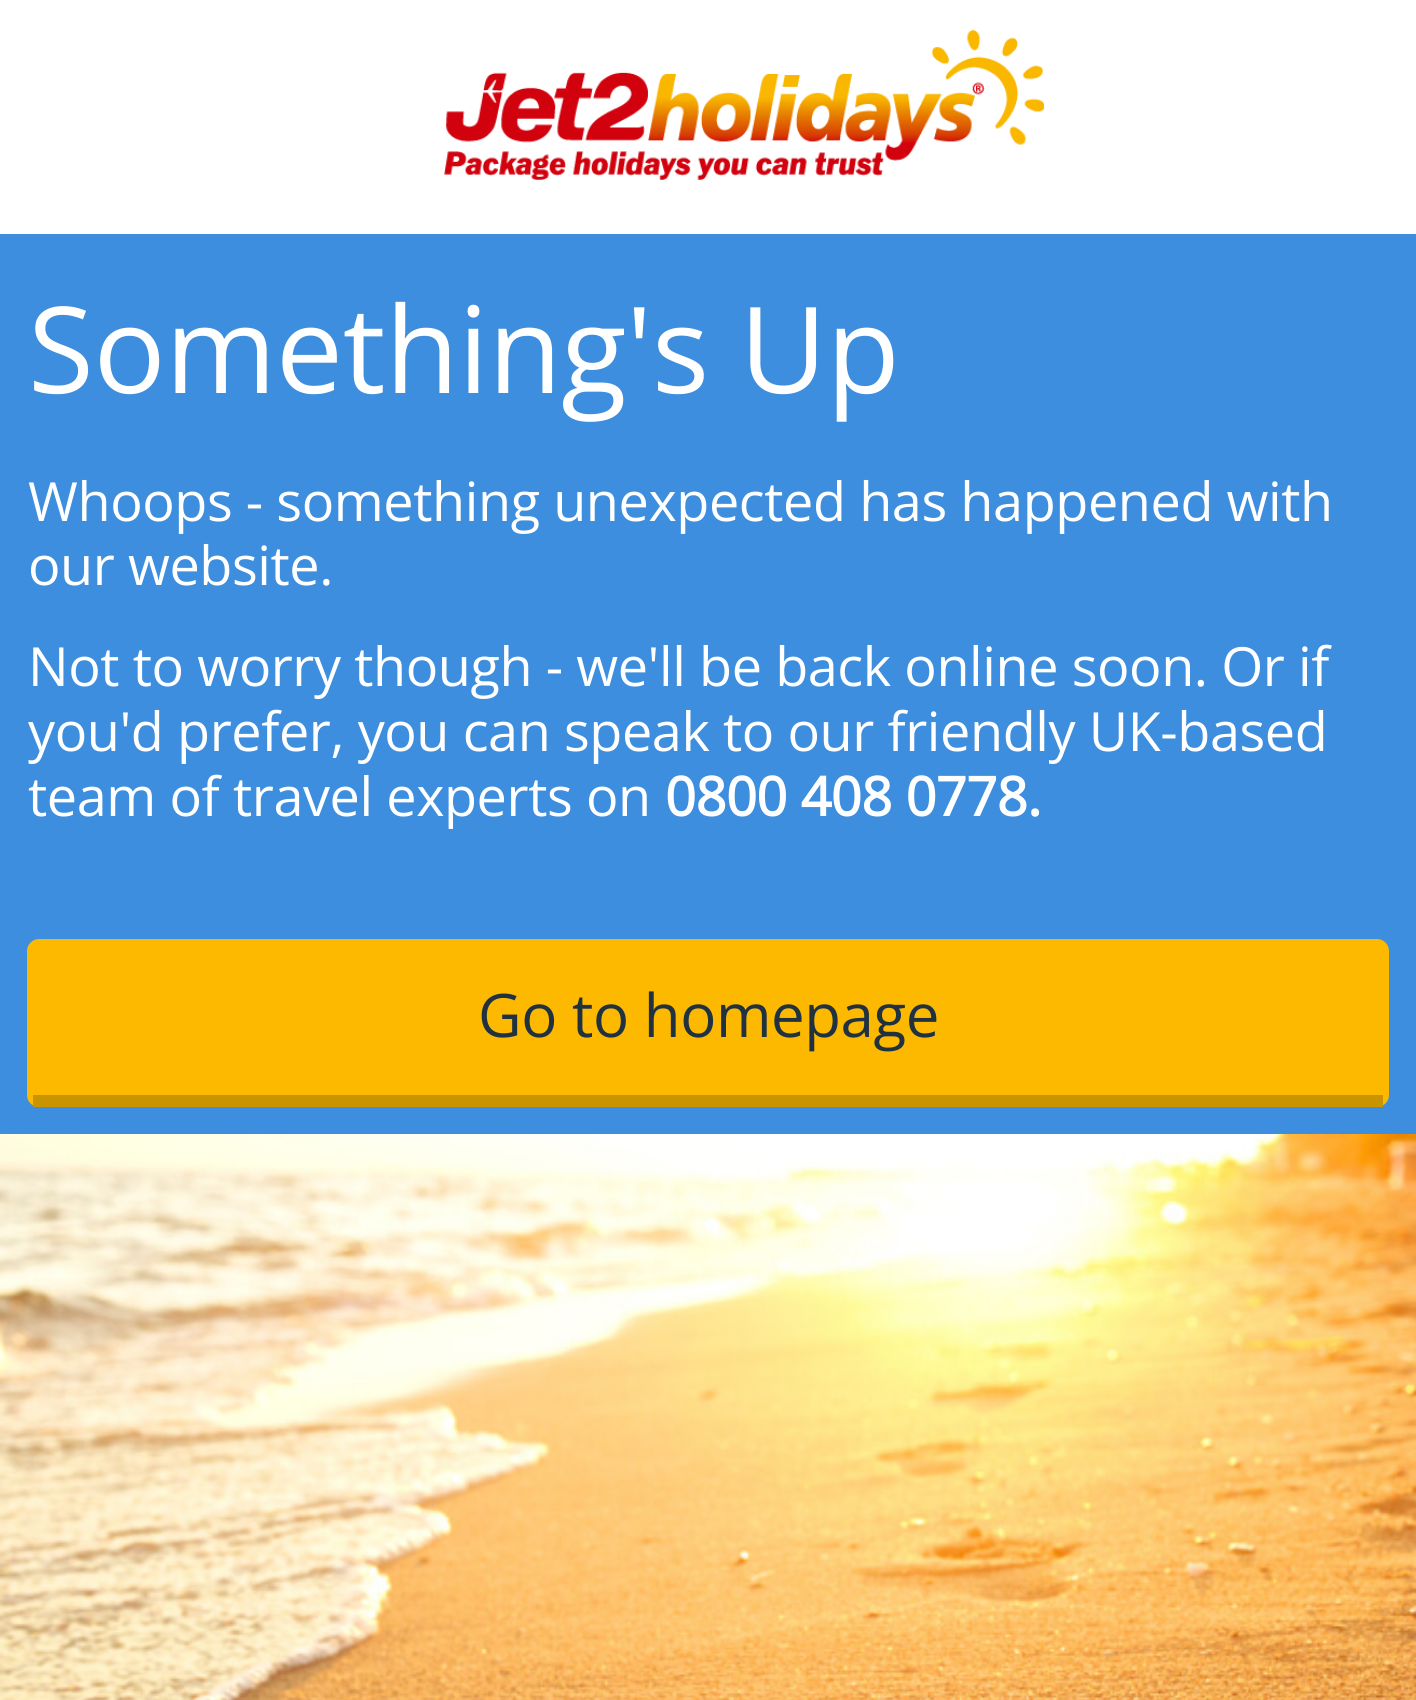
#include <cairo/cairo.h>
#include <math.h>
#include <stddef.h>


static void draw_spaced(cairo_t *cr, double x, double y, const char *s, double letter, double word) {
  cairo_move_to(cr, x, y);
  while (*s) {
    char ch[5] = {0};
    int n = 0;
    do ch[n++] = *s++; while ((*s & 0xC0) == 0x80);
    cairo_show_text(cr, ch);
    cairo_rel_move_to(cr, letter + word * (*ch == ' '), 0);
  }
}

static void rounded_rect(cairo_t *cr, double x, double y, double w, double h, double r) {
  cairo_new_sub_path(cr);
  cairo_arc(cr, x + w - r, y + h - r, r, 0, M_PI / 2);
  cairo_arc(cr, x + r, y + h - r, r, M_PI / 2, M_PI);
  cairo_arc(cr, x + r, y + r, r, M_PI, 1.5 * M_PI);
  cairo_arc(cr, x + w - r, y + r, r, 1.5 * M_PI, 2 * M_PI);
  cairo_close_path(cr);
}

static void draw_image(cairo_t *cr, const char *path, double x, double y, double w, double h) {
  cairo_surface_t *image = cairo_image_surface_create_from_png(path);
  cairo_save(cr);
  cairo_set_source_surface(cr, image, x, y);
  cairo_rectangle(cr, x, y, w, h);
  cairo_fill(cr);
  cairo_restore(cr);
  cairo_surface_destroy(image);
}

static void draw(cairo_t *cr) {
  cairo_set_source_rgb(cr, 1, 1, 1);
  cairo_paint(cr);
  draw_image(cr, "images/1.png", 444, 30, 600, 150);
  cairo_set_source_rgb(cr, 61 / 255.0, 142 / 255.0, 222 / 255.0);
  cairo_rectangle(cr, 0, 234, 1416, 900);
  cairo_fill(cr);
  cairo_set_source_rgb(cr, 253 / 255.0, 185 / 255.0, 0);
  rounded_rect(cr, 27, 939, 1362, 168, 12);
  cairo_fill(cr);
  cairo_set_source_rgb(cr, 202 / 255.0, 148 / 255.0, 0);
  cairo_rectangle(cr, 33, 1095, 1350, 12);
  cairo_fill(cr);
  draw_image(cr, "images/2.png", 0, 1134, 1416, 566);
  cairo_select_font_face(cr, "Open Sans", CAIRO_FONT_SLANT_NORMAL, CAIRO_FONT_WEIGHT_NORMAL);
  cairo_set_font_size(cr, 120);
  cairo_set_source_rgb(cr, 1, 1, 1);
  draw_spaced(cr, 28, 393, "Something's Up", -0.42, 0);
  cairo_set_font_size(cr, 54);
  draw_spaced(cr, 28, 521, "Whoops - something unexpected has happened with", -0.42, 0);
  draw_spaced(cr, 28, 585, "our website.", -0.42, 0);
  draw_spaced(cr, 28, 686, "Not to worry though - we'll be back online soon. Or if", -0.42, 0);
  draw_spaced(cr, 28, 751, "you'd prefer, you can speak to our friendly UK-based", -0.42, 0);
  draw_spaced(cr, 28, 816, "team of travel experts on", -0.42, 0);
  cairo_select_font_face(cr, "Open Sans", CAIRO_FONT_SLANT_NORMAL, CAIRO_FONT_WEIGHT_BOLD);
  draw_spaced(cr, 665, 816, "0800 408 0778.", -0.42, 0);
  cairo_select_font_face(cr, "Open Sans", CAIRO_FONT_SLANT_NORMAL, CAIRO_FONT_WEIGHT_NORMAL);
  cairo_set_font_size(cr, 60);
  cairo_set_source_rgb(cr, 32 / 255.0, 50 / 255.0, 64 / 255.0);
  draw_spaced(cr, 478, 1037, "Go to homepage", -0.42, 0);
}

int main(void) {
  cairo_surface_t *surface = cairo_image_surface_create(CAIRO_FORMAT_RGB24, 1416, 1700);
  cairo_t *cr = cairo_create(surface);
  cairo_font_options_t *options = cairo_font_options_create();
  cairo_font_options_set_hint_metrics(options, CAIRO_HINT_METRICS_OFF);
  cairo_font_options_set_hint_style(options, CAIRO_HINT_STYLE_NONE);
  cairo_set_font_options(cr, options);
  cairo_set_miter_limit(cr, 4);
  draw(cr);
  cairo_surface_write_to_png(surface, "out.png");
  cairo_font_options_destroy(options);
  cairo_destroy(cr);
  cairo_surface_destroy(surface);
  return 0;
}
